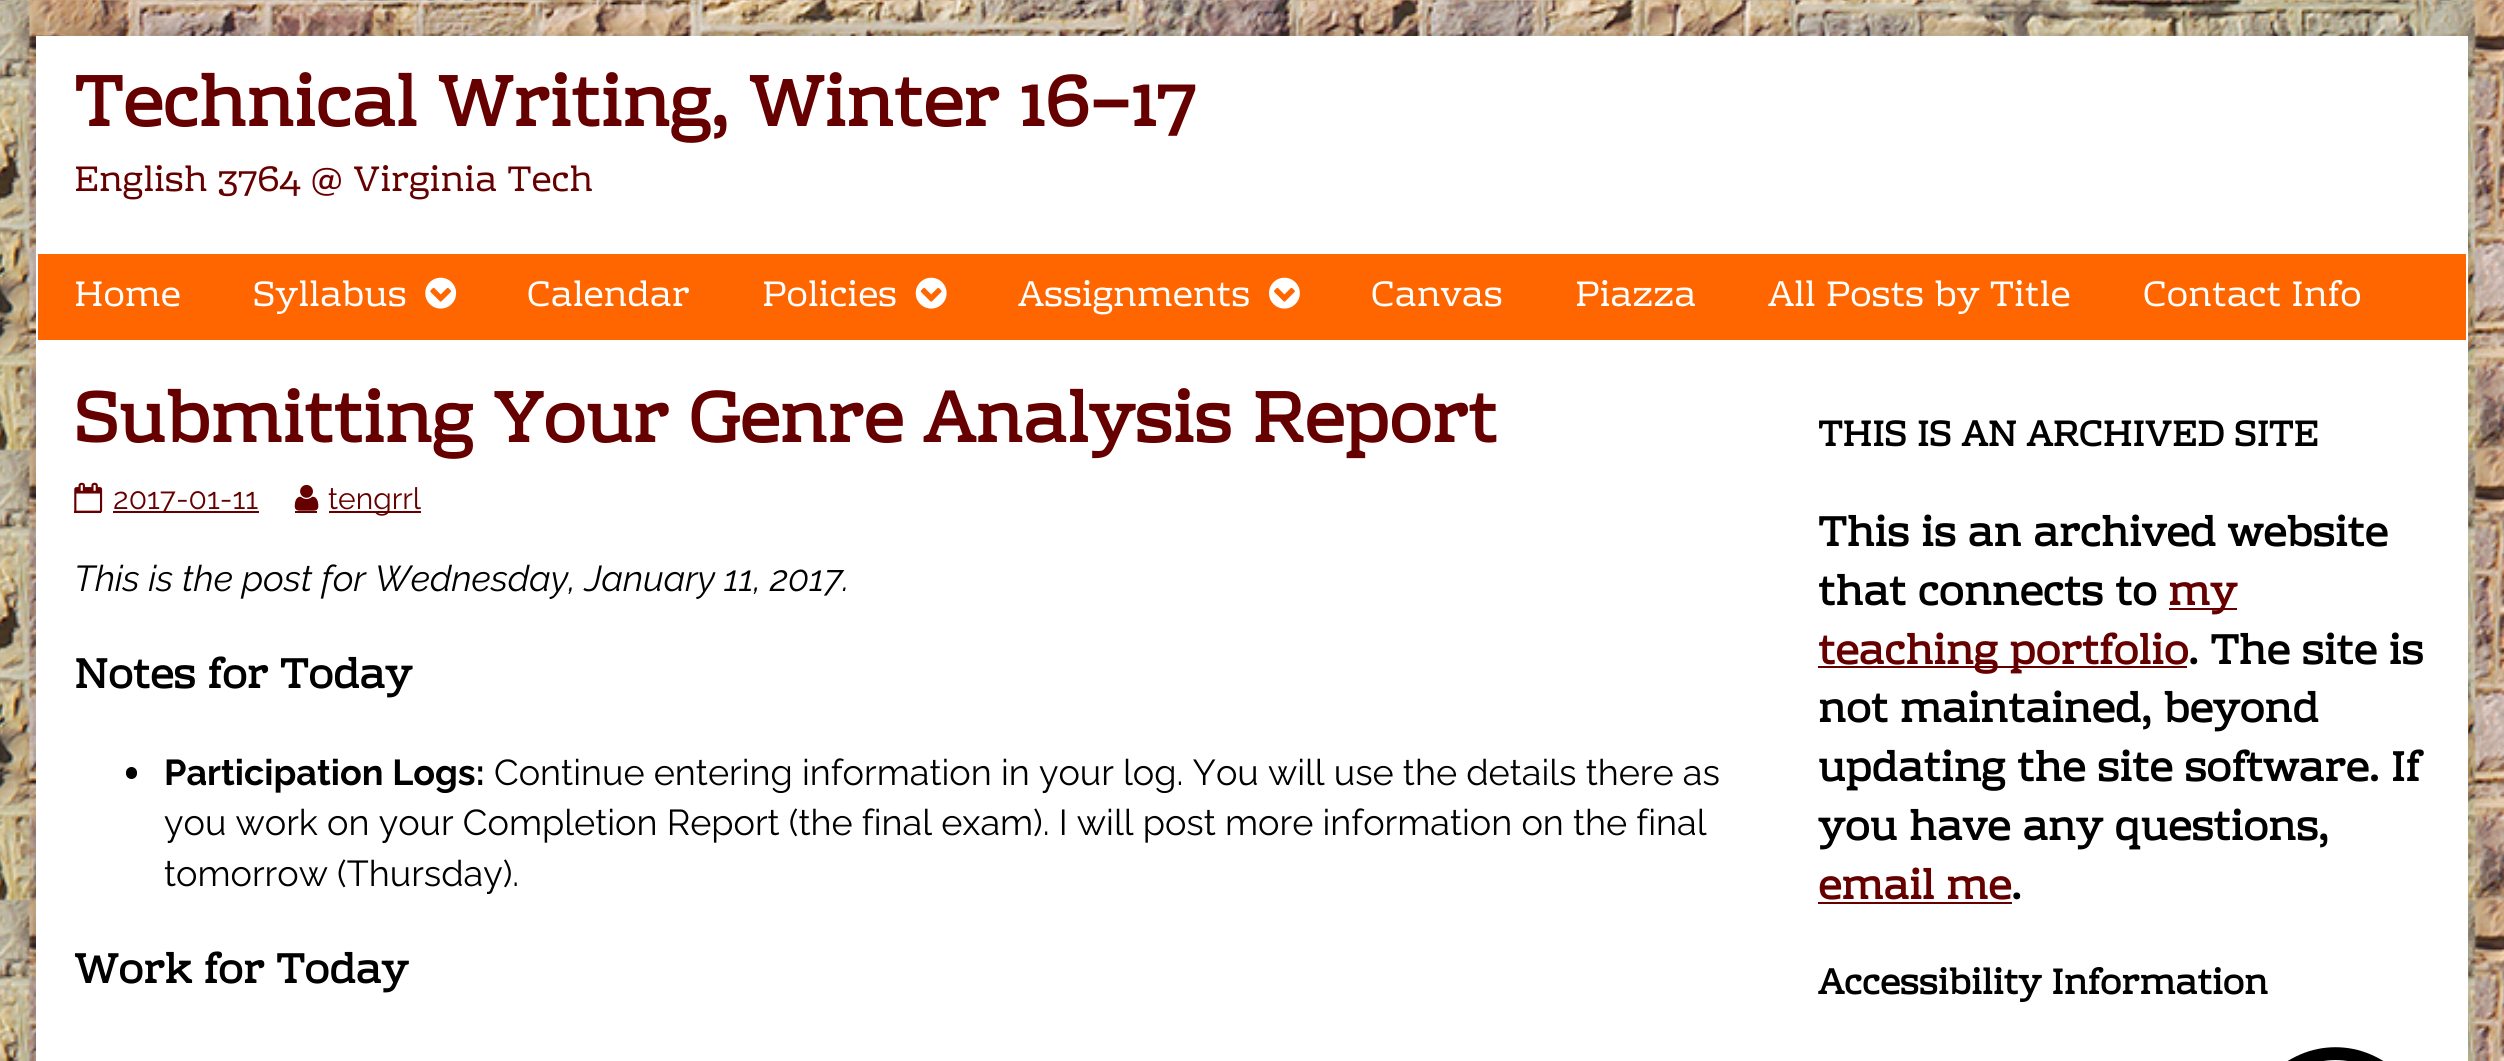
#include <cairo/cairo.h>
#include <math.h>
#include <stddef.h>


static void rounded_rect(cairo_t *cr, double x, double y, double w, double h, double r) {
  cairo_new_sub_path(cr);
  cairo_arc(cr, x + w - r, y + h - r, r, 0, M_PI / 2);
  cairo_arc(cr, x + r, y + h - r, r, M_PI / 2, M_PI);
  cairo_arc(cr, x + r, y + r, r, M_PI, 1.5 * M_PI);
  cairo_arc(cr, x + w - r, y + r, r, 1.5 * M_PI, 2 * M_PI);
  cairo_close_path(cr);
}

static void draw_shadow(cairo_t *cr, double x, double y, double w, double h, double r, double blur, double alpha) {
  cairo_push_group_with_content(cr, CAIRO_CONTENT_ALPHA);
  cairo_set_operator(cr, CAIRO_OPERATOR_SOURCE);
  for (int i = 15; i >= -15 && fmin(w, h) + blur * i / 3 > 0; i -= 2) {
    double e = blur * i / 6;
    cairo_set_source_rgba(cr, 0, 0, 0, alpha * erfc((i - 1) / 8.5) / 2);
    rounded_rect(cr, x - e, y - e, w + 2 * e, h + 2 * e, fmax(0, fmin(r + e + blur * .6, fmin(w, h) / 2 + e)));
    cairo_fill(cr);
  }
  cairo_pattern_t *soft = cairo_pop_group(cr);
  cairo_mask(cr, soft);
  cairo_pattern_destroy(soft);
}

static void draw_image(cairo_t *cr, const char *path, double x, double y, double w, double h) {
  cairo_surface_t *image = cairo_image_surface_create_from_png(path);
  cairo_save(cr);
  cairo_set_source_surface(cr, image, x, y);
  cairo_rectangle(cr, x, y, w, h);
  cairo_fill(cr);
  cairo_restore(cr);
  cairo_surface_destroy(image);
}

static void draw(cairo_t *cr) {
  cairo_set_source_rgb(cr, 1, 1, 1);
  cairo_paint(cr);
  draw_image(cr, "images/1.png", 0, 0, 2504, 1061);
  cairo_set_source_rgb(cr, 0, 0, 0);
  draw_shadow(cr, 36, 36, 2432, 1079, 0, 18, 0.2);
  cairo_set_source_rgb(cr, 1, 1, 1);
  cairo_rectangle(cr, 36, 36, 2432, 1025);
  cairo_fill(cr);
  cairo_set_source_rgb(cr, 1, 102 / 255.0, 0);
  cairo_rectangle(cr, 38, 254, 2428, 86);
  cairo_fill(cr);
  draw_image(cr, "images/2.png", 425, 277, 32, 32);
  draw_image(cr, "images/3.png", 915, 277, 32, 32);
  draw_image(cr, "images/4.png", 1269, 277, 31, 32);
  cairo_set_source_rgb(cr, 102 / 255.0, 0, 0);
  cairo_rectangle(cr, 74, 511, 27, 2);
  cairo_fill(cr);
  draw_image(cr, "images/5.png", 74, 482, 29, 31);
  cairo_rectangle(cr, 113, 511, 146, 2);
  cairo_fill(cr);
  draw_image(cr, "images/6.png", 294, 484, 25, 27);
  cairo_rectangle(cr, 295, 511, 22, 2);
  cairo_fill(cr);
  cairo_rectangle(cr, 329, 511, 92, 2);
  cairo_fill(cr);
  cairo_set_source_rgb(cr, 0, 0, 0);
  rounded_rect(cr, 126, 767, 11, 12, 5.5);
  cairo_fill(cr);
  cairo_set_source_rgb(cr, 102 / 255.0, 0, 0);
  cairo_rectangle(cr, 2169, 608, 68, 2);
  cairo_fill(cr);
  cairo_rectangle(cr, 1818, 666, 369, 2);
  cairo_fill(cr);
  cairo_rectangle(cr, 1818, 902, 194, 2);
  cairo_fill(cr);
  draw_image(cr, "images/7.png", 2287, 1047, 97, 14);
  cairo_select_font_face(cr, "Rhodium Libre", CAIRO_FONT_SLANT_NORMAL, CAIRO_FONT_WEIGHT_BOLD);
  cairo_set_font_size(cr, 72);
  cairo_move_to(cr, 74, 126);
  cairo_show_text(cr, "Technical Writing, Winter 16–17");
  cairo_select_font_face(cr, "Rhodium Libre", CAIRO_FONT_SLANT_NORMAL, CAIRO_FONT_WEIGHT_NORMAL);
  cairo_set_font_size(cr, 36);
  cairo_move_to(cr, 74, 191);
  cairo_show_text(cr, "English 3764 @ Virginia Tech");
  cairo_set_source_rgb(cr, 1, 1, 1);
  cairo_move_to(cr, 74, 306);
  cairo_show_text(cr, "Home");
  cairo_move_to(cr, 253, 306);
  cairo_show_text(cr, "Syllabus");
  cairo_move_to(cr, 527, 306);
  cairo_show_text(cr, "Calendar");
  cairo_move_to(cr, 762, 306);
  cairo_show_text(cr, "Policies");
  cairo_move_to(cr, 1018, 306);
  cairo_show_text(cr, "Assignments");
  cairo_move_to(cr, 1371, 306);
  cairo_show_text(cr, "Canvas");
  cairo_move_to(cr, 1575, 306);
  cairo_show_text(cr, "Piazza");
  cairo_move_to(cr, 1768, 306);
  cairo_show_text(cr, "All Posts by Title");
  cairo_move_to(cr, 2143, 306);
  cairo_show_text(cr, "Contact Info");
  cairo_select_font_face(cr, "Rhodium Libre", CAIRO_FONT_SLANT_NORMAL, CAIRO_FONT_WEIGHT_BOLD);
  cairo_set_font_size(cr, 72);
  cairo_set_source_rgb(cr, 102 / 255.0, 0, 0);
  cairo_move_to(cr, 74, 442);
  cairo_show_text(cr, "Submitting Your Genre Analysis Report");
  cairo_select_font_face(cr, "Raleway", CAIRO_FONT_SLANT_NORMAL, CAIRO_FONT_WEIGHT_NORMAL);
  cairo_set_font_size(cr, 30);
  cairo_move_to(cr, 113, 509);
  cairo_show_text(cr, "2017-01-11");
  cairo_move_to(cr, 328, 509);
  cairo_show_text(cr, "tengrrl");
  cairo_select_font_face(cr, "Raleway", CAIRO_FONT_SLANT_ITALIC, CAIRO_FONT_WEIGHT_NORMAL);
  cairo_set_font_size(cr, 36);
  cairo_set_source_rgb(cr, 0, 0, 0);
  cairo_move_to(cr, 74, 591);
  cairo_show_text(cr, "This is the post for Wednesday, January 11, 2017.");
  cairo_select_font_face(cr, "Rhodium Libre", CAIRO_FONT_SLANT_NORMAL, CAIRO_FONT_WEIGHT_BOLD);
  cairo_set_font_size(cr, 42.1);
  cairo_move_to(cr, 74, 688);
  cairo_show_text(cr, "Notes for Today");
  cairo_select_font_face(cr, "Raleway", CAIRO_FONT_SLANT_NORMAL, CAIRO_FONT_WEIGHT_BOLD);
  cairo_set_font_size(cr, 36);
  cairo_move_to(cr, 164, 785);
  cairo_show_text(cr, "Participation Logs:");
  cairo_select_font_face(cr, "Raleway", CAIRO_FONT_SLANT_NORMAL, CAIRO_FONT_WEIGHT_NORMAL);
  cairo_move_to(cr, 494, 785);
  cairo_show_text(cr, "Continue entering information in your log. You will use the details there as");
  cairo_move_to(cr, 164, 835);
  cairo_show_text(cr, "you work on your Completion Report (the final exam). I will post more information on the final");
  cairo_move_to(cr, 164, 886);
  cairo_show_text(cr, "tomorrow (Thursday).");
  cairo_select_font_face(cr, "Rhodium Libre", CAIRO_FONT_SLANT_NORMAL, CAIRO_FONT_WEIGHT_BOLD);
  cairo_set_font_size(cr, 42.1);
  cairo_move_to(cr, 74, 983);
  cairo_show_text(cr, "Work for Today");
  cairo_set_font_size(cr, 36);
  cairo_move_to(cr, 1818, 446);
  cairo_show_text(cr, "THIS IS AN ARCHIVED SITE");
  cairo_set_font_size(cr, 42.1);
  cairo_move_to(cr, 1818, 546);
  cairo_show_text(cr, "This is an archived website");
  cairo_move_to(cr, 1818, 605);
  cairo_show_text(cr, "that connects to");
  cairo_set_source_rgb(cr, 102 / 255.0, 0, 0);
  cairo_move_to(cr, 2168, 605);
  cairo_show_text(cr, "my");
  cairo_move_to(cr, 1818, 664);
  cairo_show_text(cr, "teaching portfolio");
  cairo_set_source_rgb(cr, 0, 0, 0);
  cairo_move_to(cr, 2188, 664);
  cairo_show_text(cr, ". The site is");
  cairo_move_to(cr, 1818, 722);
  cairo_show_text(cr, "not maintained, beyond");
  cairo_move_to(cr, 1818, 781);
  cairo_show_text(cr, "updating the site software. If");
  cairo_move_to(cr, 1818, 840);
  cairo_show_text(cr, "you have any questions,");
  cairo_set_source_rgb(cr, 102 / 255.0, 0, 0);
  cairo_move_to(cr, 1818, 899);
  cairo_show_text(cr, "email me");
  cairo_set_source_rgb(cr, 0, 0, 0);
  cairo_move_to(cr, 2011, 899);
  cairo_show_text(cr, ".");
  cairo_set_font_size(cr, 36);
  cairo_move_to(cr, 1818, 994);
  cairo_show_text(cr, "Accessibility Information");
}

int main(void) {
  cairo_surface_t *surface = cairo_image_surface_create(CAIRO_FORMAT_RGB24, 2504, 1061);
  cairo_t *cr = cairo_create(surface);
  cairo_font_options_t *options = cairo_font_options_create();
  cairo_font_options_set_hint_metrics(options, CAIRO_HINT_METRICS_OFF);
  cairo_font_options_set_hint_style(options, CAIRO_HINT_STYLE_NONE);
  cairo_set_font_options(cr, options);
  cairo_set_miter_limit(cr, 4);
  draw(cr);
  cairo_surface_write_to_png(surface, "out.png");
  cairo_font_options_destroy(options);
  cairo_destroy(cr);
  cairo_surface_destroy(surface);
  return 0;
}
